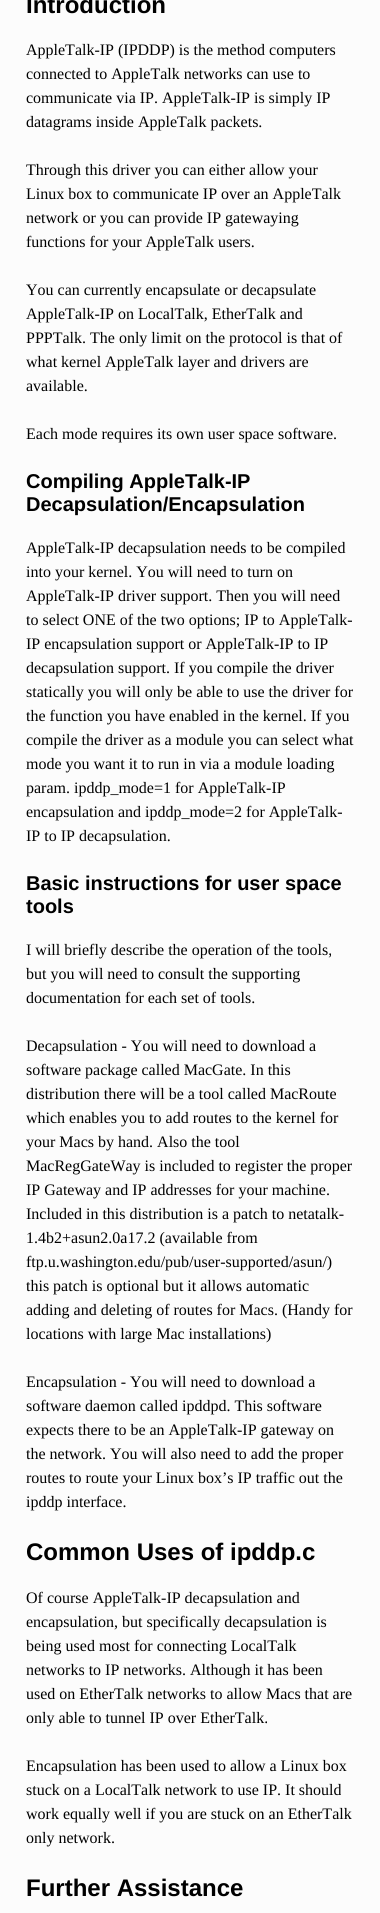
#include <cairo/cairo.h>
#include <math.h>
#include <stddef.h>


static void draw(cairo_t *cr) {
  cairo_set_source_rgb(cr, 252 / 255.0, 252 / 255.0, 252 / 255.0);
  cairo_paint(cr);
  cairo_select_font_face(cr, "Liberation Sans", CAIRO_FONT_SLANT_NORMAL, CAIRO_FONT_WEIGHT_BOLD);
  cairo_set_font_size(cr, 24);
  cairo_set_source_rgb(cr, 0, 0, 0);
  cairo_move_to(cr, 26, 13);
  cairo_show_text(cr, "Introduction");
  cairo_select_font_face(cr, "Liberation Serif", CAIRO_FONT_SLANT_NORMAL, CAIRO_FONT_WEIGHT_NORMAL);
  cairo_set_font_size(cr, 16);
  cairo_move_to(cr, 26, 55);
  cairo_show_text(cr, "AppleTalk-IP (IPDDP) is the method computers");
  cairo_move_to(cr, 26, 79);
  cairo_show_text(cr, "connected to AppleTalk networks can use to");
  cairo_move_to(cr, 26, 103);
  cairo_show_text(cr, "communicate via IP. AppleTalk-IP is simply IP");
  cairo_move_to(cr, 26, 127);
  cairo_show_text(cr, "datagrams inside AppleTalk packets.");
  cairo_move_to(cr, 26, 175);
  cairo_show_text(cr, "Through this driver you can either allow your");
  cairo_move_to(cr, 26, 199);
  cairo_show_text(cr, "Linux box to communicate IP over an AppleTalk");
  cairo_move_to(cr, 26, 223);
  cairo_show_text(cr, "network or you can provide IP gatewaying");
  cairo_move_to(cr, 26, 247);
  cairo_show_text(cr, "functions for your AppleTalk users.");
  cairo_move_to(cr, 26, 295);
  cairo_show_text(cr, "You can currently encapsulate or decapsulate");
  cairo_move_to(cr, 26, 319);
  cairo_show_text(cr, "AppleTalk-IP on LocalTalk, EtherTalk and");
  cairo_move_to(cr, 26, 343);
  cairo_show_text(cr, "PPPTalk. The only limit on the protocol is that of");
  cairo_move_to(cr, 26, 367);
  cairo_show_text(cr, "what kernel AppleTalk layer and drivers are");
  cairo_move_to(cr, 26, 391);
  cairo_show_text(cr, "available.");
  cairo_move_to(cr, 26, 439);
  cairo_show_text(cr, "Each mode requires its own user space software.");
  cairo_select_font_face(cr, "Liberation Sans", CAIRO_FONT_SLANT_NORMAL, CAIRO_FONT_WEIGHT_BOLD);
  cairo_set_font_size(cr, 20);
  cairo_move_to(cr, 26, 488);
  cairo_show_text(cr, "Compiling AppleTalk-IP");
  cairo_move_to(cr, 26, 511);
  cairo_show_text(cr, "Decapsulation/Encapsulation");
  cairo_select_font_face(cr, "Liberation Serif", CAIRO_FONT_SLANT_NORMAL, CAIRO_FONT_WEIGHT_NORMAL);
  cairo_set_font_size(cr, 16);
  cairo_move_to(cr, 26, 553);
  cairo_show_text(cr, "AppleTalk-IP decapsulation needs to be compiled");
  cairo_move_to(cr, 26, 577);
  cairo_show_text(cr, "into your kernel. You will need to turn on");
  cairo_move_to(cr, 26, 601);
  cairo_show_text(cr, "AppleTalk-IP driver support. Then you will need");
  cairo_move_to(cr, 26, 625);
  cairo_show_text(cr, "to select ONE of the two options; IP to AppleTalk-");
  cairo_move_to(cr, 26, 649);
  cairo_show_text(cr, "IP encapsulation support or AppleTalk-IP to IP");
  cairo_move_to(cr, 26, 673);
  cairo_show_text(cr, "decapsulation support. If you compile the driver");
  cairo_move_to(cr, 26, 697);
  cairo_show_text(cr, "statically you will only be able to use the driver for");
  cairo_move_to(cr, 26, 721);
  cairo_show_text(cr, "the function you have enabled in the kernel. If you");
  cairo_move_to(cr, 26, 745);
  cairo_show_text(cr, "compile the driver as a module you can select what");
  cairo_move_to(cr, 26, 769);
  cairo_show_text(cr, "mode you want it to run in via a module loading");
  cairo_move_to(cr, 26, 793);
  cairo_show_text(cr, "param. ipddp_mode=1 for AppleTalk-IP");
  cairo_move_to(cr, 26, 817);
  cairo_show_text(cr, "encapsulation and ipddp_mode=2 for AppleTalk-");
  cairo_move_to(cr, 26, 841);
  cairo_show_text(cr, "IP to IP decapsulation.");
  cairo_select_font_face(cr, "Liberation Sans", CAIRO_FONT_SLANT_NORMAL, CAIRO_FONT_WEIGHT_BOLD);
  cairo_set_font_size(cr, 20);
  cairo_move_to(cr, 26, 890);
  cairo_show_text(cr, "Basic instructions for user space");
  cairo_move_to(cr, 26, 913);
  cairo_show_text(cr, "tools");
  cairo_select_font_face(cr, "Liberation Serif", CAIRO_FONT_SLANT_NORMAL, CAIRO_FONT_WEIGHT_NORMAL);
  cairo_set_font_size(cr, 16);
  cairo_move_to(cr, 26, 955);
  cairo_show_text(cr, "I will briefly describe the operation of the tools,");
  cairo_move_to(cr, 26, 979);
  cairo_show_text(cr, "but you will need to consult the supporting");
  cairo_move_to(cr, 26, 1003);
  cairo_show_text(cr, "documentation for each set of tools.");
  cairo_move_to(cr, 26, 1051);
  cairo_show_text(cr, "Decapsulation - You will need to download a");
  cairo_move_to(cr, 26, 1075);
  cairo_show_text(cr, "software package called MacGate. In this");
  cairo_move_to(cr, 26, 1099);
  cairo_show_text(cr, "distribution there will be a tool called MacRoute");
  cairo_move_to(cr, 26, 1123);
  cairo_show_text(cr, "which enables you to add routes to the kernel for");
  cairo_move_to(cr, 26, 1147);
  cairo_show_text(cr, "your Macs by hand. Also the tool");
  cairo_move_to(cr, 26, 1171);
  cairo_show_text(cr, "MacRegGateWay is included to register the proper");
  cairo_move_to(cr, 26, 1195);
  cairo_show_text(cr, "IP Gateway and IP addresses for your machine.");
  cairo_move_to(cr, 26, 1219);
  cairo_show_text(cr, "Included in this distribution is a patch to netatalk-");
  cairo_move_to(cr, 26, 1243);
  cairo_show_text(cr, "1.4b2+asun2.0a17.2 (available from");
  cairo_move_to(cr, 26, 1267);
  cairo_show_text(cr, "ftp.u.washington.edu/pub/user-supported/asun/)");
  cairo_move_to(cr, 26, 1291);
  cairo_show_text(cr, "this patch is optional but it allows automatic");
  cairo_move_to(cr, 26, 1315);
  cairo_show_text(cr, "adding and deleting of routes for Macs. (Handy for");
  cairo_move_to(cr, 26, 1339);
  cairo_show_text(cr, "locations with large Mac installations)");
  cairo_move_to(cr, 26, 1387);
  cairo_show_text(cr, "Encapsulation - You will need to download a");
  cairo_move_to(cr, 26, 1411);
  cairo_show_text(cr, "software daemon called ipddpd. This software");
  cairo_move_to(cr, 26, 1435);
  cairo_show_text(cr, "expects there to be an AppleTalk-IP gateway on");
  cairo_move_to(cr, 26, 1459);
  cairo_show_text(cr, "the network. You will also need to add the proper");
  cairo_move_to(cr, 26, 1483);
  cairo_show_text(cr, "routes to route your Linux box’s IP traffic out the");
  cairo_move_to(cr, 26, 1507);
  cairo_show_text(cr, "ipddp interface.");
  cairo_select_font_face(cr, "Liberation Sans", CAIRO_FONT_SLANT_NORMAL, CAIRO_FONT_WEIGHT_BOLD);
  cairo_set_font_size(cr, 24);
  cairo_move_to(cr, 26, 1560);
  cairo_show_text(cr, "Common Uses of ipddp.c");
  cairo_select_font_face(cr, "Liberation Serif", CAIRO_FONT_SLANT_NORMAL, CAIRO_FONT_WEIGHT_NORMAL);
  cairo_set_font_size(cr, 16);
  cairo_move_to(cr, 26, 1603);
  cairo_show_text(cr, "Of course AppleTalk-IP decapsulation and");
  cairo_move_to(cr, 26, 1627);
  cairo_show_text(cr, "encapsulation, but specifically decapsulation is");
  cairo_move_to(cr, 26, 1651);
  cairo_show_text(cr, "being used most for connecting LocalTalk");
  cairo_move_to(cr, 26, 1675);
  cairo_show_text(cr, "networks to IP networks. Although it has been");
  cairo_move_to(cr, 26, 1699);
  cairo_show_text(cr, "used on EtherTalk networks to allow Macs that are");
  cairo_move_to(cr, 26, 1723);
  cairo_show_text(cr, "only able to tunnel IP over EtherTalk.");
  cairo_move_to(cr, 26, 1771);
  cairo_show_text(cr, "Encapsulation has been used to allow a Linux box");
  cairo_move_to(cr, 26, 1795);
  cairo_show_text(cr, "stuck on a LocalTalk network to use IP. It should");
  cairo_move_to(cr, 26, 1819);
  cairo_show_text(cr, "work equally well if you are stuck on an EtherTalk");
  cairo_move_to(cr, 26, 1843);
  cairo_show_text(cr, "only network.");
  cairo_select_font_face(cr, "Liberation Sans", CAIRO_FONT_SLANT_NORMAL, CAIRO_FONT_WEIGHT_BOLD);
  cairo_set_font_size(cr, 24);
  cairo_move_to(cr, 26, 1896);
  cairo_show_text(cr, "Further Assistance");
}

int main(void) {
  cairo_surface_t *surface = cairo_image_surface_create(CAIRO_FORMAT_RGB24, 380, 1913);
  cairo_t *cr = cairo_create(surface);
  cairo_font_options_t *options = cairo_font_options_create();
  cairo_font_options_set_hint_metrics(options, CAIRO_HINT_METRICS_OFF);
  cairo_font_options_set_hint_style(options, CAIRO_HINT_STYLE_NONE);
  cairo_set_font_options(cr, options);
  cairo_set_miter_limit(cr, 4);
  draw(cr);
  cairo_surface_write_to_png(surface, "out.png");
  cairo_font_options_destroy(options);
  cairo_destroy(cr);
  cairo_surface_destroy(surface);
  return 0;
}
